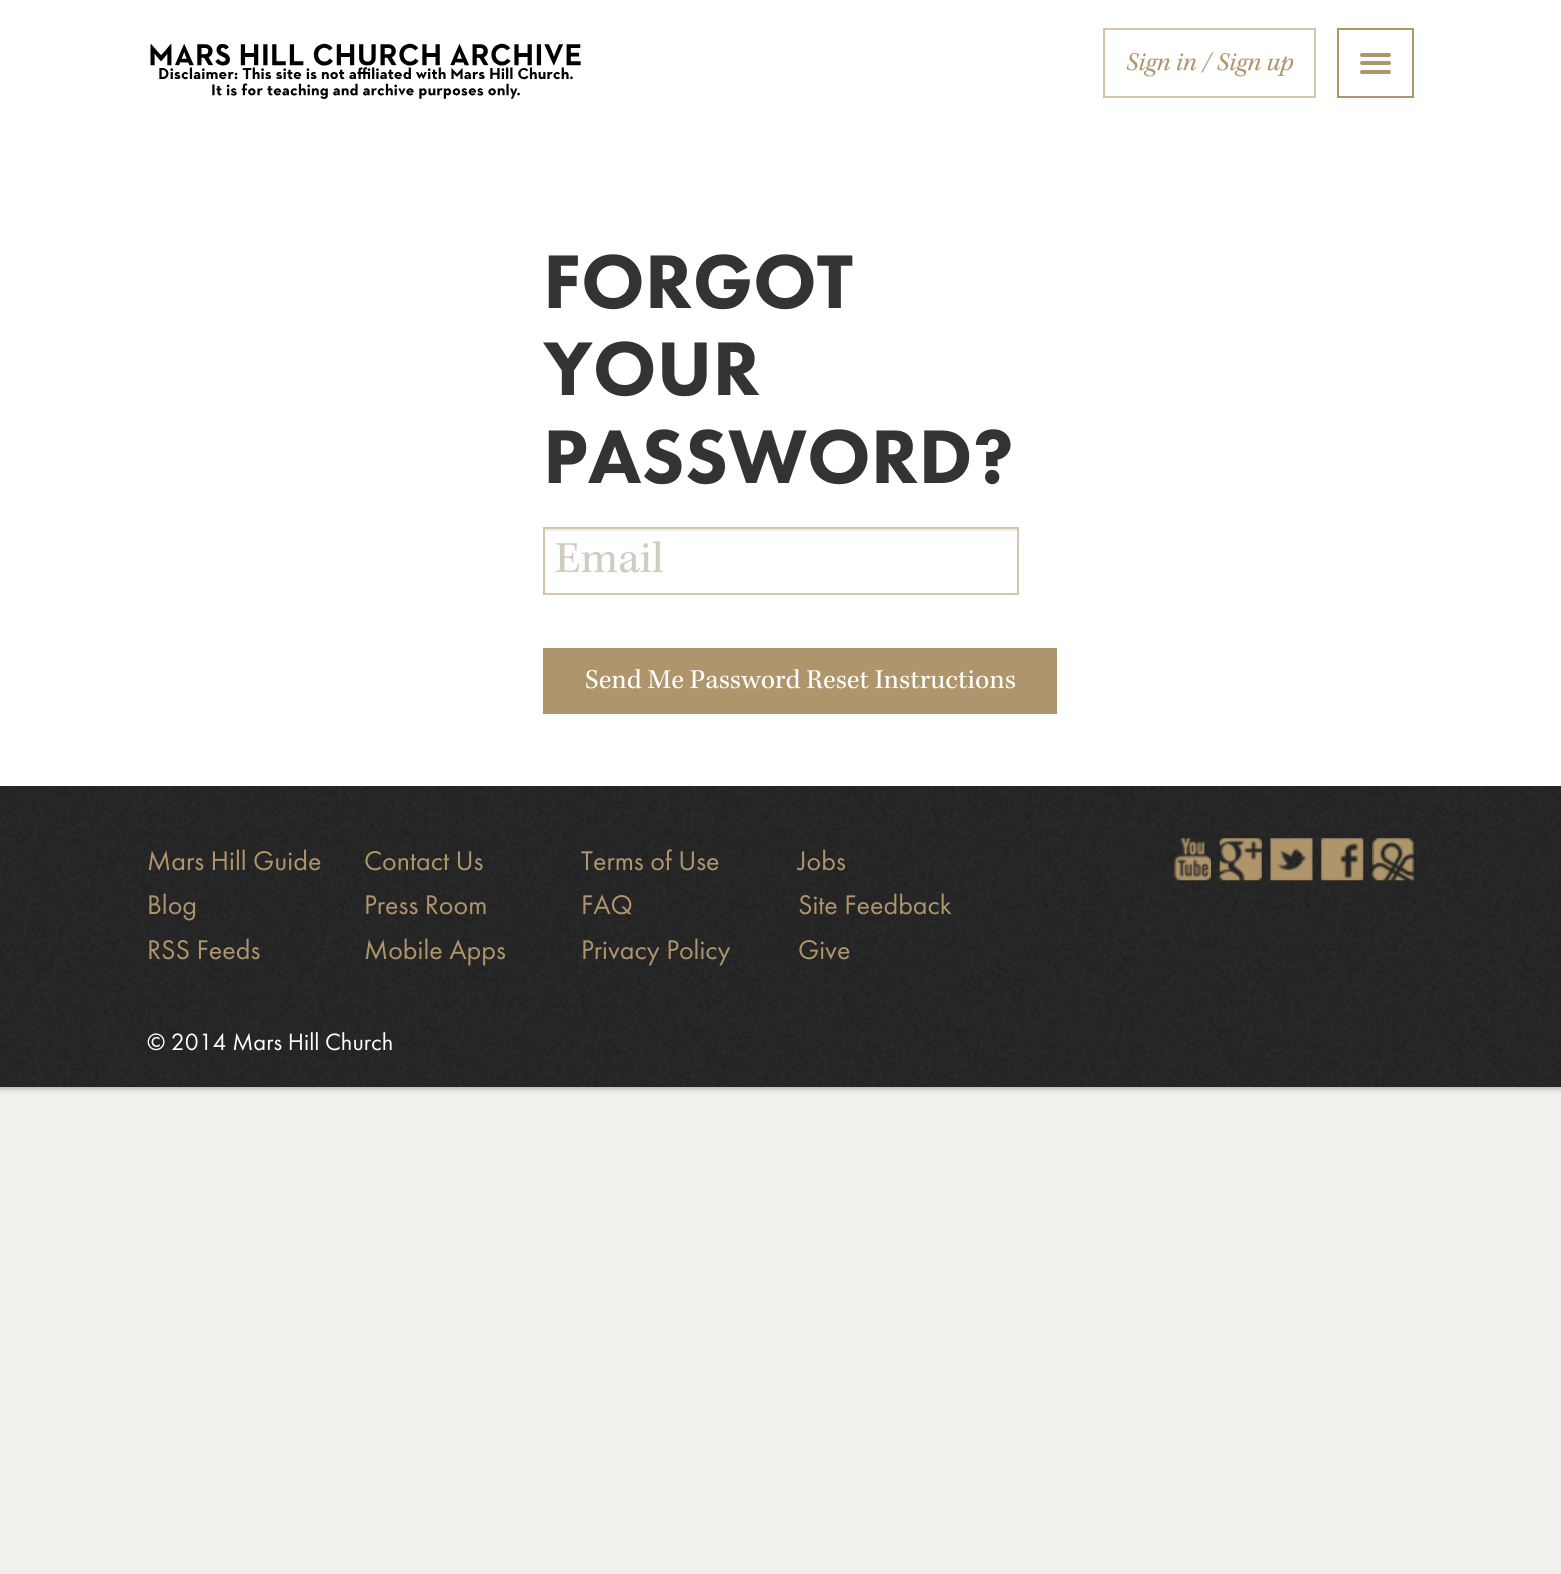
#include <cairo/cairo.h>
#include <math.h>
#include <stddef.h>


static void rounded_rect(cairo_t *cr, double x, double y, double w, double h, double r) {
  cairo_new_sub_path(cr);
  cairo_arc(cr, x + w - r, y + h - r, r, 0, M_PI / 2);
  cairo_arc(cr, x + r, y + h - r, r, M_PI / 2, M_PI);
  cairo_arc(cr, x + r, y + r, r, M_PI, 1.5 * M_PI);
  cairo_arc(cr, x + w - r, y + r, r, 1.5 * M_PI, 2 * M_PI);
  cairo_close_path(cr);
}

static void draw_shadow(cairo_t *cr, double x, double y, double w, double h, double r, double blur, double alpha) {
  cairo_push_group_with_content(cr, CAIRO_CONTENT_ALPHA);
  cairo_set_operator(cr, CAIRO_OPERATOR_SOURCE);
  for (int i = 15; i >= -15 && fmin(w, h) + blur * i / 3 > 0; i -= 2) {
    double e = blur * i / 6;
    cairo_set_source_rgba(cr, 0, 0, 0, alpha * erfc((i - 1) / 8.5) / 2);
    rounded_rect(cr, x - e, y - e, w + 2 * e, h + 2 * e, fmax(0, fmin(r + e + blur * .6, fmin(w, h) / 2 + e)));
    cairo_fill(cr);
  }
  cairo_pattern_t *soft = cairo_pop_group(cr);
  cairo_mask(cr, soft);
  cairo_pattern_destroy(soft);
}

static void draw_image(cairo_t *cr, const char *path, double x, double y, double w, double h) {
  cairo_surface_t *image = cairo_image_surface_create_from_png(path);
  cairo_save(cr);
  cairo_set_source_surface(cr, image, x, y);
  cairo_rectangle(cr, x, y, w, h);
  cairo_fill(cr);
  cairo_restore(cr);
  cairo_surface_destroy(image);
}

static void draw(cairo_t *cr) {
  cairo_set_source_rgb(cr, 241 / 255.0, 240 / 255.0, 236 / 255.0);
  cairo_paint(cr);
  cairo_set_source_rgb(cr, 0, 0, 0);
  draw_shadow(cr, 0, 2, 1561, 1087, 0, 2.5, 0.25);
  cairo_set_source_rgb(cr, 1, 1, 1);
  cairo_rectangle(cr, 0, 0, 1561, 786);
  cairo_fill(cr);
  draw_image(cr, "images/1.png", 150, 43, 431, 56);
  cairo_rectangle(cr, 1104, 29, 211, 68);
  cairo_set_source_rgb(cr, 210 / 255.0, 196 / 255.0, 173 / 255.0);
  cairo_stroke(cr);
  cairo_rectangle(cr, 1338, 29, 75, 68);
  cairo_set_source_rgb(cr, 174 / 255.0, 149 / 255.0, 107 / 255.0);
  cairo_stroke(cr);
  rounded_rect(cr, 1360, 53, 31, 4, 2);
  cairo_fill(cr);
  rounded_rect(cr, 1360, 61, 31, 4, 2);
  cairo_fill(cr);
  rounded_rect(cr, 1360, 70, 31, 4, 2);
  cairo_fill(cr);
  cairo_set_source_rgb(cr, 236 / 255.0, 236 / 255.0, 236 / 255.0);
  cairo_rectangle(cr, 544, 529, 473, 2);
  cairo_fill(cr);
  cairo_rectangle(cr, 544, 528, 474, 66);
  cairo_set_source_rgb(cr, 210 / 255.0, 196 / 255.0, 173 / 255.0);
  cairo_stroke(cr);
  cairo_set_source_rgb(cr, 174 / 255.0, 149 / 255.0, 107 / 255.0);
  cairo_rectangle(cr, 543, 648, 514, 66);
  cairo_fill(cr);
  cairo_set_source_rgb(cr, 34 / 255.0, 34 / 255.0, 34 / 255.0);
  cairo_rectangle(cr, 0, 786, 1561, 301);
  cairo_fill(cr);
  draw_image(cr, "images/2.png", 0, 786, 1561, 301);
  draw_image(cr, "images/3.png", 1174, 838, 37, 43);
  draw_image(cr, "images/4.png", 1219, 838, 43, 43);
  draw_image(cr, "images/5.png", 1270, 838, 43, 43);
  draw_image(cr, "images/6.png", 1321, 838, 43, 43);
  draw_image(cr, "images/7.png", 1372, 838, 42, 43);
  cairo_select_font_face(cr, "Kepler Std", CAIRO_FONT_SLANT_ITALIC, CAIRO_FONT_WEIGHT_NORMAL);
  cairo_set_font_size(cr, 26.25);
  cairo_set_source_rgb(cr, 174 / 255.0, 149 / 255.0, 107 / 255.0);
  cairo_move_to(cr, 1126, 70);
  cairo_show_text(cr, "Sign in / Sign up");
  cairo_select_font_face(cr, "Futura PT Black", CAIRO_FONT_SLANT_NORMAL, CAIRO_FONT_WEIGHT_NORMAL);
  cairo_set_font_size(cr, 78.75);
  cairo_set_source_rgb(cr, 51 / 255.0, 51 / 255.0, 51 / 255.0);
  cairo_move_to(cr, 543, 308);
  cairo_show_text(cr, "FORGOT");
  cairo_move_to(cr, 543, 395);
  cairo_show_text(cr, "YOUR");
  cairo_move_to(cr, 543, 483);
  cairo_show_text(cr, "PASSWORD?");
  cairo_select_font_face(cr, "Kepler Std", CAIRO_FONT_SLANT_NORMAL, CAIRO_FONT_WEIGHT_NORMAL);
  cairo_set_font_size(cr, 45.5);
  cairo_set_source_rgb(cr, 209 / 255.0, 204 / 255.0, 192 / 255.0);
  cairo_move_to(cr, 555, 572);
  cairo_show_text(cr, "Email");
  cairo_set_font_size(cr, 28);
  cairo_set_source_rgb(cr, 1, 1, 1);
  cairo_move_to(cr, 585, 688);
  cairo_show_text(cr, "Send Me Password Reset Instructions");
  cairo_select_font_face(cr, "Futura PT", CAIRO_FONT_SLANT_NORMAL, CAIRO_FONT_WEIGHT_NORMAL);
  cairo_set_source_rgb(cr, 174 / 255.0, 149 / 255.0, 107 / 255.0);
  cairo_move_to(cr, 147, 870);
  cairo_show_text(cr, "Mars Hill Guide");
  cairo_move_to(cr, 147, 914);
  cairo_show_text(cr, "Blog");
  cairo_move_to(cr, 147, 959);
  cairo_show_text(cr, "RSS Feeds");
  cairo_move_to(cr, 364, 870);
  cairo_show_text(cr, "Contact Us");
  cairo_move_to(cr, 364, 914);
  cairo_show_text(cr, "Press Room");
  cairo_move_to(cr, 364, 959);
  cairo_show_text(cr, "Mobile Apps");
  cairo_move_to(cr, 581, 870);
  cairo_show_text(cr, "Terms of Use");
  cairo_move_to(cr, 581, 914);
  cairo_show_text(cr, "FAQ");
  cairo_move_to(cr, 581, 959);
  cairo_show_text(cr, "Privacy Policy");
  cairo_move_to(cr, 798, 870);
  cairo_show_text(cr, "Jobs");
  cairo_move_to(cr, 798, 914);
  cairo_show_text(cr, "Site Feedback");
  cairo_move_to(cr, 798, 959);
  cairo_show_text(cr, "Give");
  cairo_set_font_size(cr, 24.5);
  cairo_set_source_rgb(cr, 1, 1, 1);
  cairo_move_to(cr, 147, 1050);
  cairo_show_text(cr, "© 2014 Mars Hill Church");
}

int main(void) {
  cairo_surface_t *surface = cairo_image_surface_create(CAIRO_FORMAT_RGB24, 1561, 1574);
  cairo_t *cr = cairo_create(surface);
  cairo_font_options_t *options = cairo_font_options_create();
  cairo_font_options_set_hint_metrics(options, CAIRO_HINT_METRICS_OFF);
  cairo_font_options_set_hint_style(options, CAIRO_HINT_STYLE_NONE);
  cairo_set_font_options(cr, options);
  cairo_set_miter_limit(cr, 4);
  draw(cr);
  cairo_surface_write_to_png(surface, "out.png");
  cairo_font_options_destroy(options);
  cairo_destroy(cr);
  cairo_surface_destroy(surface);
  return 0;
}
